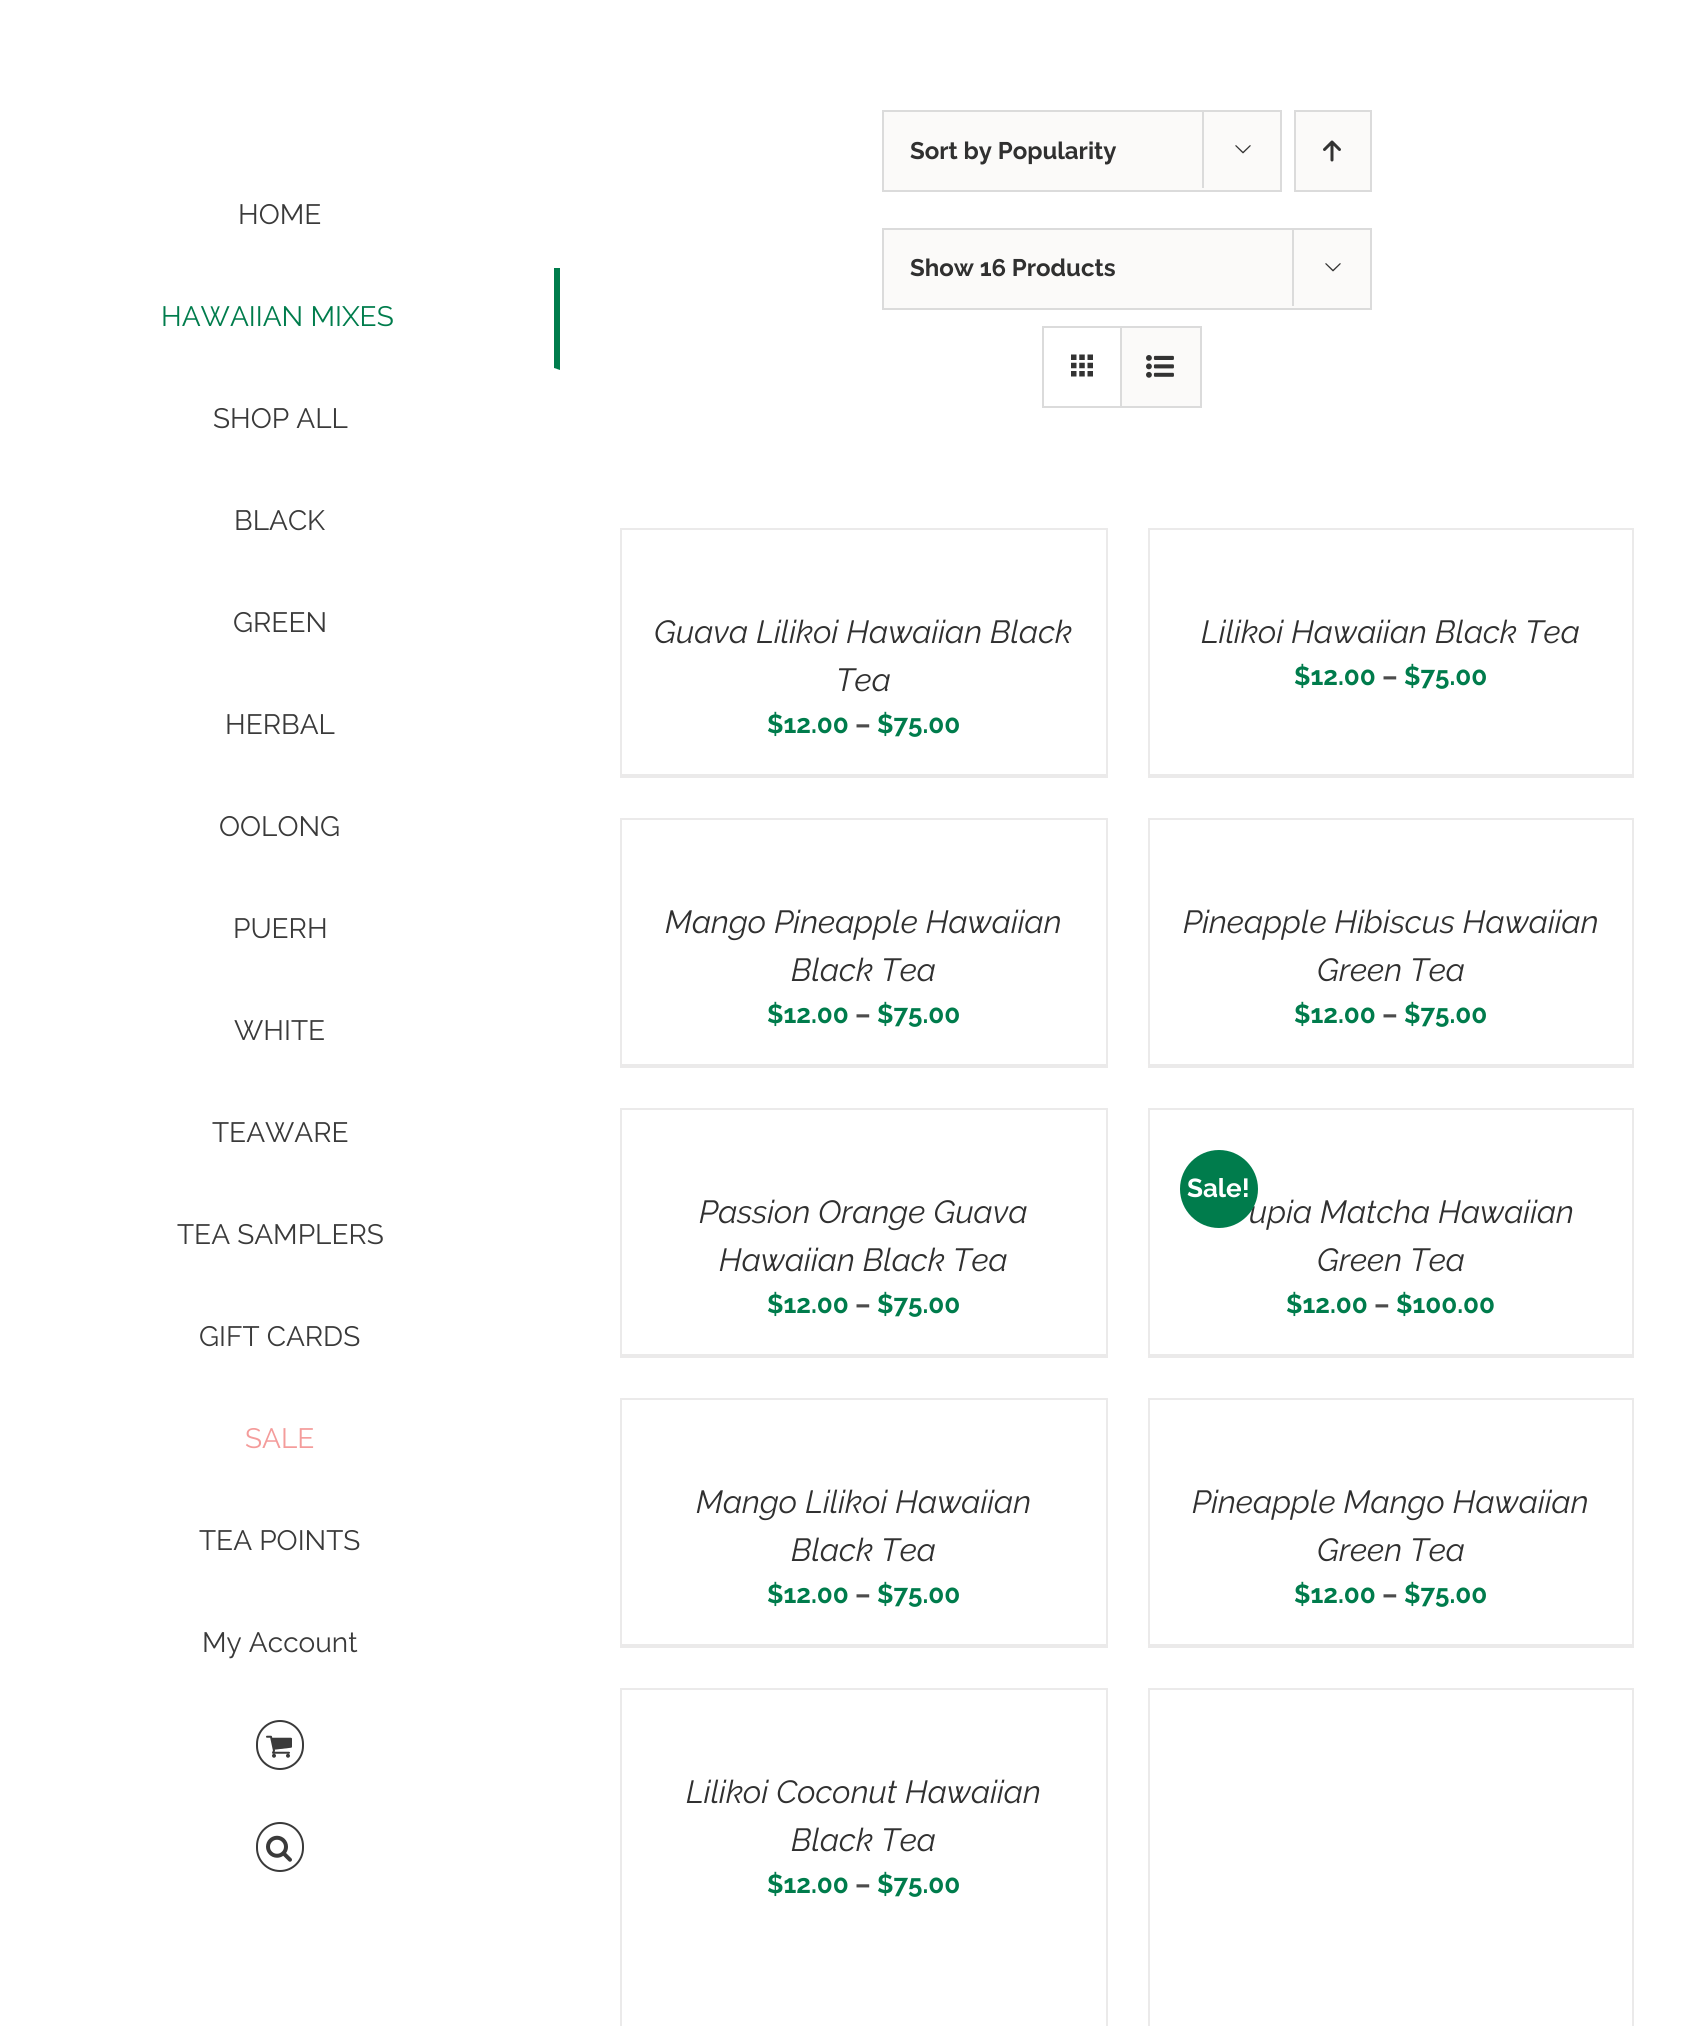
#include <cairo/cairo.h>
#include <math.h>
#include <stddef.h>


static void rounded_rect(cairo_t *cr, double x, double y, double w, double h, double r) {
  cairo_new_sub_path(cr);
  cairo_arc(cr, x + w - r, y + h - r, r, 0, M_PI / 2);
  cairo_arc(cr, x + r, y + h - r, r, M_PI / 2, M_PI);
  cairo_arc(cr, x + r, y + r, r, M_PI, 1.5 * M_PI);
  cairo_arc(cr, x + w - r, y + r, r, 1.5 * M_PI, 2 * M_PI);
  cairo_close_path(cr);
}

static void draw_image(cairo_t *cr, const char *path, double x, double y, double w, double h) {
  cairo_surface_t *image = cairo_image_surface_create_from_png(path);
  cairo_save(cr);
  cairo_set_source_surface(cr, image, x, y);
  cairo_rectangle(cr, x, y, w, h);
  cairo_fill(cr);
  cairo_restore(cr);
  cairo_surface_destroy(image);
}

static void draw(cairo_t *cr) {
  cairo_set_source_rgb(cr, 1, 1, 1);
  cairo_paint(cr);
  cairo_set_source_rgb(cr, 0, 124 / 255.0, 76 / 255.0);
  cairo_new_path(cr);
  cairo_move_to(cr, 560, 268);
  cairo_line_to(cr, 560, 370);
  cairo_line_to(cr, 554, 368);
  cairo_line_to(cr, 554, 268);
  cairo_close_path(cr);
  cairo_fill(cr);
  rounded_rect(cr, 257, 1721, 46, 48, 23);
  cairo_set_source_rgb(cr, 58 / 255.0, 58 / 255.0, 58 / 255.0);
  cairo_stroke(cr);
  draw_image(cr, "images/1.png", 266, 1735, 26, 23);
  rounded_rect(cr, 257, 1823, 46, 48, 23);
  cairo_stroke(cr);
  draw_image(cr, "images/2.png", 266, 1835, 26, 27);
  cairo_set_source_rgb(cr, 251 / 255.0, 250 / 255.0, 249 / 255.0);
  cairo_rectangle(cr, 883, 111, 398, 80);
  cairo_fill_preserve(cr);
  cairo_set_source_rgb(cr, 219 / 255.0, 219 / 255.0, 219 / 255.0);
  cairo_stroke(cr);
  cairo_rectangle(cr, 1202, 110, 2, 78);
  cairo_fill(cr);
  draw_image(cr, "images/3.png", 1235, 145, 16, 9);
  cairo_set_source_rgb(cr, 251 / 255.0, 250 / 255.0, 249 / 255.0);
  cairo_rectangle(cr, 1295, 111, 76, 80);
  cairo_fill_preserve(cr);
  cairo_set_source_rgb(cr, 219 / 255.0, 219 / 255.0, 219 / 255.0);
  cairo_stroke(cr);
  draw_image(cr, "images/4.png", 1323, 140, 18, 22);
  cairo_set_source_rgb(cr, 251 / 255.0, 250 / 255.0, 249 / 255.0);
  cairo_rectangle(cr, 883, 229, 488, 80);
  cairo_fill_preserve(cr);
  cairo_set_source_rgb(cr, 219 / 255.0, 219 / 255.0, 219 / 255.0);
  cairo_stroke(cr);
  cairo_rectangle(cr, 1292, 228, 2, 78);
  cairo_fill(cr);
  draw_image(cr, "images/3.png", 1325, 263, 16, 9);
  cairo_rectangle(cr, 1043, 327, 158, 80);
  cairo_stroke(cr);
  cairo_rectangle(cr, 1120, 328, 2, 78);
  cairo_fill(cr);
  draw_image(cr, "images/5.png", 1071, 354, 22, 23);
  cairo_set_source_rgb(cr, 251 / 255.0, 250 / 255.0, 249 / 255.0);
  cairo_rectangle(cr, 1122, 328, 78, 78);
  cairo_fill(cr);
  draw_image(cr, "images/6.png", 1146, 355, 28, 23);
  cairo_set_source_rgb(cr, 235 / 255.0, 234 / 255.0, 234 / 255.0);
  cairo_rectangle(cr, 620, 528, 488, 2);
  cairo_fill(cr);
  cairo_rectangle(cr, 1106, 528, 2, 250);
  cairo_fill(cr);
  cairo_rectangle(cr, 620, 774, 488, 4);
  cairo_fill(cr);
  cairo_rectangle(cr, 620, 528, 2, 250);
  cairo_fill(cr);
  cairo_rectangle(cr, 1148, 528, 486, 2);
  cairo_fill(cr);
  cairo_rectangle(cr, 1632, 528, 2, 250);
  cairo_fill(cr);
  cairo_rectangle(cr, 1148, 774, 486, 4);
  cairo_fill(cr);
  cairo_rectangle(cr, 1148, 528, 2, 250);
  cairo_fill(cr);
  cairo_rectangle(cr, 620, 818, 488, 2);
  cairo_fill(cr);
  cairo_rectangle(cr, 1106, 818, 2, 250);
  cairo_fill(cr);
  cairo_rectangle(cr, 620, 1064, 488, 4);
  cairo_fill(cr);
  cairo_rectangle(cr, 620, 818, 2, 250);
  cairo_fill(cr);
  cairo_rectangle(cr, 1148, 818, 486, 2);
  cairo_fill(cr);
  cairo_rectangle(cr, 1632, 818, 2, 250);
  cairo_fill(cr);
  cairo_rectangle(cr, 1148, 1064, 486, 4);
  cairo_fill(cr);
  cairo_rectangle(cr, 1148, 818, 2, 250);
  cairo_fill(cr);
  cairo_rectangle(cr, 620, 1108, 488, 2);
  cairo_fill(cr);
  cairo_rectangle(cr, 1106, 1108, 2, 250);
  cairo_fill(cr);
  cairo_rectangle(cr, 620, 1354, 488, 4);
  cairo_fill(cr);
  cairo_rectangle(cr, 620, 1108, 2, 250);
  cairo_fill(cr);
  cairo_rectangle(cr, 1148, 1108, 486, 2);
  cairo_fill(cr);
  cairo_rectangle(cr, 1632, 1108, 2, 250);
  cairo_fill(cr);
  cairo_rectangle(cr, 1148, 1354, 486, 4);
  cairo_fill(cr);
  cairo_rectangle(cr, 1148, 1108, 2, 250);
  cairo_fill(cr);
  cairo_rectangle(cr, 620, 1398, 488, 2);
  cairo_fill(cr);
  cairo_rectangle(cr, 1106, 1398, 2, 250);
  cairo_fill(cr);
  cairo_rectangle(cr, 620, 1644, 488, 4);
  cairo_fill(cr);
  cairo_rectangle(cr, 620, 1398, 2, 250);
  cairo_fill(cr);
  cairo_rectangle(cr, 1148, 1398, 486, 2);
  cairo_fill(cr);
  cairo_rectangle(cr, 1632, 1398, 2, 250);
  cairo_fill(cr);
  cairo_rectangle(cr, 1148, 1644, 486, 4);
  cairo_fill(cr);
  cairo_rectangle(cr, 1148, 1398, 2, 250);
  cairo_fill(cr);
  cairo_rectangle(cr, 620, 1688, 488, 2);
  cairo_fill(cr);
  cairo_rectangle(cr, 1106, 1688, 2, 338);
  cairo_fill(cr);
  cairo_rectangle(cr, 620, 1688, 2, 338);
  cairo_fill(cr);
  cairo_rectangle(cr, 1148, 1688, 486, 2);
  cairo_fill(cr);
  cairo_rectangle(cr, 1632, 1688, 2, 338);
  cairo_fill(cr);
  cairo_rectangle(cr, 1148, 1688, 2, 338);
  cairo_fill(cr);
  cairo_select_font_face(cr, "Raleway", CAIRO_FONT_SLANT_NORMAL, CAIRO_FONT_WEIGHT_NORMAL);
  cairo_set_font_size(cr, 28);
  cairo_set_source_rgb(cr, 58 / 255.0, 58 / 255.0, 58 / 255.0);
  cairo_move_to(cr, 238, 224);
  cairo_show_text(cr, "HOME");
  cairo_set_source_rgb(cr, 0, 124 / 255.0, 76 / 255.0);
  cairo_move_to(cr, 161, 326);
  cairo_show_text(cr, "HAWAIIAN MIXES");
  cairo_set_source_rgb(cr, 58 / 255.0, 58 / 255.0, 58 / 255.0);
  cairo_move_to(cr, 213, 428);
  cairo_show_text(cr, "SHOP ALL");
  cairo_move_to(cr, 234, 530);
  cairo_show_text(cr, "BLACK");
  cairo_move_to(cr, 233, 632);
  cairo_show_text(cr, "GREEN");
  cairo_move_to(cr, 225, 734);
  cairo_show_text(cr, "HERBAL");
  cairo_move_to(cr, 219, 836);
  cairo_show_text(cr, "OOLONG");
  cairo_move_to(cr, 233, 938);
  cairo_show_text(cr, "PUERH");
  cairo_move_to(cr, 234, 1040);
  cairo_show_text(cr, "WHITE");
  cairo_move_to(cr, 212, 1142);
  cairo_show_text(cr, "TEAWARE");
  cairo_move_to(cr, 177, 1244);
  cairo_show_text(cr, "TEA SAMPLERS");
  cairo_move_to(cr, 199, 1346);
  cairo_show_text(cr, "GIFT CARDS");
  cairo_set_source_rgb(cr, 244 / 255.0, 156 / 255.0, 155 / 255.0);
  cairo_move_to(cr, 245, 1448);
  cairo_show_text(cr, "SALE");
  cairo_set_source_rgb(cr, 58 / 255.0, 58 / 255.0, 58 / 255.0);
  cairo_move_to(cr, 199, 1550);
  cairo_show_text(cr, "TEA POINTS");
  cairo_move_to(cr, 202, 1652);
  cairo_show_text(cr, "My Account");
  cairo_select_font_face(cr, "Raleway", CAIRO_FONT_SLANT_NORMAL, CAIRO_FONT_WEIGHT_BOLD);
  cairo_set_font_size(cr, 24);
  cairo_set_source_rgb(cr, 48 / 255.0, 48 / 255.0, 48 / 255.0);
  cairo_move_to(cr, 910, 159);
  cairo_show_text(cr, "Sort by Popularity");
  cairo_move_to(cr, 910, 276);
  cairo_show_text(cr, "Show 16 Products");
  cairo_select_font_face(cr, "Raleway", CAIRO_FONT_SLANT_ITALIC, CAIRO_FONT_WEIGHT_NORMAL);
  cairo_set_font_size(cr, 32);
  cairo_move_to(cr, 654, 643);
  cairo_show_text(cr, "Guava Lilikoi Hawaiian Black");
  cairo_move_to(cr, 836, 691);
  cairo_show_text(cr, "Tea");
  cairo_select_font_face(cr, "Raleway", CAIRO_FONT_SLANT_NORMAL, CAIRO_FONT_WEIGHT_BOLD);
  cairo_set_font_size(cr, 26);
  cairo_set_source_rgb(cr, 0, 124 / 255.0, 76 / 255.0);
  cairo_move_to(cr, 767, 733);
  cairo_show_text(cr, "$12.00");
  cairo_set_source_rgb(cr, 76 / 255.0, 76 / 255.0, 76 / 255.0);
  cairo_move_to(cr, 855, 733);
  cairo_show_text(cr, "–");
  cairo_set_source_rgb(cr, 0, 124 / 255.0, 76 / 255.0);
  cairo_move_to(cr, 877, 733);
  cairo_show_text(cr, "$75.00");
  cairo_select_font_face(cr, "Raleway", CAIRO_FONT_SLANT_ITALIC, CAIRO_FONT_WEIGHT_NORMAL);
  cairo_set_font_size(cr, 32);
  cairo_set_source_rgb(cr, 48 / 255.0, 48 / 255.0, 48 / 255.0);
  cairo_move_to(cr, 1201, 643);
  cairo_show_text(cr, "Lilikoi Hawaiian Black Tea");
  cairo_select_font_face(cr, "Raleway", CAIRO_FONT_SLANT_NORMAL, CAIRO_FONT_WEIGHT_BOLD);
  cairo_set_font_size(cr, 26);
  cairo_set_source_rgb(cr, 0, 124 / 255.0, 76 / 255.0);
  cairo_move_to(cr, 1294, 685);
  cairo_show_text(cr, "$12.00");
  cairo_set_source_rgb(cr, 76 / 255.0, 76 / 255.0, 76 / 255.0);
  cairo_move_to(cr, 1382, 685);
  cairo_show_text(cr, "–");
  cairo_set_source_rgb(cr, 0, 124 / 255.0, 76 / 255.0);
  cairo_move_to(cr, 1404, 685);
  cairo_show_text(cr, "$75.00");
  cairo_select_font_face(cr, "Raleway", CAIRO_FONT_SLANT_ITALIC, CAIRO_FONT_WEIGHT_NORMAL);
  cairo_set_font_size(cr, 32);
  cairo_set_source_rgb(cr, 48 / 255.0, 48 / 255.0, 48 / 255.0);
  cairo_move_to(cr, 665, 933);
  cairo_show_text(cr, "Mango Pineapple Hawaiian");
  cairo_move_to(cr, 791, 981);
  cairo_show_text(cr, "Black Tea");
  cairo_select_font_face(cr, "Raleway", CAIRO_FONT_SLANT_NORMAL, CAIRO_FONT_WEIGHT_BOLD);
  cairo_set_font_size(cr, 26);
  cairo_set_source_rgb(cr, 0, 124 / 255.0, 76 / 255.0);
  cairo_move_to(cr, 767, 1023);
  cairo_show_text(cr, "$12.00");
  cairo_set_source_rgb(cr, 76 / 255.0, 76 / 255.0, 76 / 255.0);
  cairo_move_to(cr, 855, 1023);
  cairo_show_text(cr, "–");
  cairo_set_source_rgb(cr, 0, 124 / 255.0, 76 / 255.0);
  cairo_move_to(cr, 877, 1023);
  cairo_show_text(cr, "$75.00");
  cairo_select_font_face(cr, "Raleway", CAIRO_FONT_SLANT_ITALIC, CAIRO_FONT_WEIGHT_NORMAL);
  cairo_set_font_size(cr, 32);
  cairo_set_source_rgb(cr, 48 / 255.0, 48 / 255.0, 48 / 255.0);
  cairo_move_to(cr, 1183, 933);
  cairo_show_text(cr, "Pineapple Hibiscus Hawaiian");
  cairo_move_to(cr, 1317, 981);
  cairo_show_text(cr, "Green Tea");
  cairo_select_font_face(cr, "Raleway", CAIRO_FONT_SLANT_NORMAL, CAIRO_FONT_WEIGHT_BOLD);
  cairo_set_font_size(cr, 26);
  cairo_set_source_rgb(cr, 0, 124 / 255.0, 76 / 255.0);
  cairo_move_to(cr, 1294, 1023);
  cairo_show_text(cr, "$12.00");
  cairo_set_source_rgb(cr, 76 / 255.0, 76 / 255.0, 76 / 255.0);
  cairo_move_to(cr, 1382, 1023);
  cairo_show_text(cr, "–");
  cairo_set_source_rgb(cr, 0, 124 / 255.0, 76 / 255.0);
  cairo_move_to(cr, 1404, 1023);
  cairo_show_text(cr, "$75.00");
  cairo_select_font_face(cr, "Raleway", CAIRO_FONT_SLANT_ITALIC, CAIRO_FONT_WEIGHT_NORMAL);
  cairo_set_font_size(cr, 32);
  cairo_set_source_rgb(cr, 48 / 255.0, 48 / 255.0, 48 / 255.0);
  cairo_move_to(cr, 699, 1223);
  cairo_show_text(cr, "Passion Orange Guava");
  cairo_move_to(cr, 719, 1271);
  cairo_show_text(cr, "Hawaiian Black Tea");
  cairo_select_font_face(cr, "Raleway", CAIRO_FONT_SLANT_NORMAL, CAIRO_FONT_WEIGHT_BOLD);
  cairo_set_font_size(cr, 26);
  cairo_set_source_rgb(cr, 0, 124 / 255.0, 76 / 255.0);
  cairo_move_to(cr, 767, 1313);
  cairo_show_text(cr, "$12.00");
  cairo_set_source_rgb(cr, 76 / 255.0, 76 / 255.0, 76 / 255.0);
  cairo_move_to(cr, 855, 1313);
  cairo_show_text(cr, "–");
  cairo_set_source_rgb(cr, 0, 124 / 255.0, 76 / 255.0);
  cairo_move_to(cr, 877, 1313);
  cairo_show_text(cr, "$75.00");
  cairo_select_font_face(cr, "Raleway", CAIRO_FONT_SLANT_ITALIC, CAIRO_FONT_WEIGHT_NORMAL);
  cairo_set_font_size(cr, 32);
  cairo_set_source_rgb(cr, 48 / 255.0, 48 / 255.0, 48 / 255.0);
  cairo_move_to(cr, 1249, 1223);
  cairo_show_text(cr, "upia Matcha Hawaiian");
  cairo_set_source_rgb(cr, 0, 124 / 255.0, 76 / 255.0);
  cairo_new_path(cr);
  cairo_arc(cr, 1219, 1189, 39, 0, 2 * M_PI);
  cairo_fill(cr);
  cairo_select_font_face(cr, "Raleway", CAIRO_FONT_SLANT_NORMAL, CAIRO_FONT_WEIGHT_BOLD);
  cairo_set_font_size(cr, 26);
  cairo_set_source_rgb(cr, 1, 1, 1);
  cairo_move_to(cr, 1187, 1197);
  cairo_show_text(cr, "Sale!");
  cairo_select_font_face(cr, "Raleway", CAIRO_FONT_SLANT_ITALIC, CAIRO_FONT_WEIGHT_NORMAL);
  cairo_set_font_size(cr, 32);
  cairo_set_source_rgb(cr, 48 / 255.0, 48 / 255.0, 48 / 255.0);
  cairo_move_to(cr, 1317, 1271);
  cairo_show_text(cr, "Green Tea");
  cairo_select_font_face(cr, "Raleway", CAIRO_FONT_SLANT_NORMAL, CAIRO_FONT_WEIGHT_BOLD);
  cairo_set_font_size(cr, 26);
  cairo_set_source_rgb(cr, 0, 124 / 255.0, 76 / 255.0);
  cairo_move_to(cr, 1286, 1313);
  cairo_show_text(cr, "$12.00");
  cairo_set_source_rgb(cr, 76 / 255.0, 76 / 255.0, 76 / 255.0);
  cairo_move_to(cr, 1374, 1313);
  cairo_show_text(cr, "–");
  cairo_set_source_rgb(cr, 0, 124 / 255.0, 76 / 255.0);
  cairo_move_to(cr, 1396, 1313);
  cairo_show_text(cr, "$100.00");
  cairo_select_font_face(cr, "Raleway", CAIRO_FONT_SLANT_ITALIC, CAIRO_FONT_WEIGHT_NORMAL);
  cairo_set_font_size(cr, 32);
  cairo_set_source_rgb(cr, 48 / 255.0, 48 / 255.0, 48 / 255.0);
  cairo_move_to(cr, 696, 1513);
  cairo_show_text(cr, "Mango Lilikoi Hawaiian");
  cairo_move_to(cr, 791, 1561);
  cairo_show_text(cr, "Black Tea");
  cairo_select_font_face(cr, "Raleway", CAIRO_FONT_SLANT_NORMAL, CAIRO_FONT_WEIGHT_BOLD);
  cairo_set_font_size(cr, 26);
  cairo_set_source_rgb(cr, 0, 124 / 255.0, 76 / 255.0);
  cairo_move_to(cr, 767, 1603);
  cairo_show_text(cr, "$12.00");
  cairo_set_source_rgb(cr, 76 / 255.0, 76 / 255.0, 76 / 255.0);
  cairo_move_to(cr, 855, 1603);
  cairo_show_text(cr, "–");
  cairo_set_source_rgb(cr, 0, 124 / 255.0, 76 / 255.0);
  cairo_move_to(cr, 877, 1603);
  cairo_show_text(cr, "$75.00");
  cairo_select_font_face(cr, "Raleway", CAIRO_FONT_SLANT_ITALIC, CAIRO_FONT_WEIGHT_NORMAL);
  cairo_set_font_size(cr, 32);
  cairo_set_source_rgb(cr, 48 / 255.0, 48 / 255.0, 48 / 255.0);
  cairo_move_to(cr, 1192, 1513);
  cairo_show_text(cr, "Pineapple Mango Hawaiian");
  cairo_move_to(cr, 1317, 1561);
  cairo_show_text(cr, "Green Tea");
  cairo_select_font_face(cr, "Raleway", CAIRO_FONT_SLANT_NORMAL, CAIRO_FONT_WEIGHT_BOLD);
  cairo_set_font_size(cr, 26);
  cairo_set_source_rgb(cr, 0, 124 / 255.0, 76 / 255.0);
  cairo_move_to(cr, 1294, 1603);
  cairo_show_text(cr, "$12.00");
  cairo_set_source_rgb(cr, 76 / 255.0, 76 / 255.0, 76 / 255.0);
  cairo_move_to(cr, 1382, 1603);
  cairo_show_text(cr, "–");
  cairo_set_source_rgb(cr, 0, 124 / 255.0, 76 / 255.0);
  cairo_move_to(cr, 1404, 1603);
  cairo_show_text(cr, "$75.00");
  cairo_select_font_face(cr, "Raleway", CAIRO_FONT_SLANT_ITALIC, CAIRO_FONT_WEIGHT_NORMAL);
  cairo_set_font_size(cr, 32);
  cairo_set_source_rgb(cr, 48 / 255.0, 48 / 255.0, 48 / 255.0);
  cairo_move_to(cr, 686, 1803);
  cairo_show_text(cr, "Lilikoi Coconut Hawaiian");
  cairo_move_to(cr, 791, 1851);
  cairo_show_text(cr, "Black Tea");
  cairo_select_font_face(cr, "Raleway", CAIRO_FONT_SLANT_NORMAL, CAIRO_FONT_WEIGHT_BOLD);
  cairo_set_font_size(cr, 26);
  cairo_set_source_rgb(cr, 0, 124 / 255.0, 76 / 255.0);
  cairo_move_to(cr, 767, 1893);
  cairo_show_text(cr, "$12.00");
  cairo_set_source_rgb(cr, 76 / 255.0, 76 / 255.0, 76 / 255.0);
  cairo_move_to(cr, 855, 1893);
  cairo_show_text(cr, "–");
  cairo_set_source_rgb(cr, 0, 124 / 255.0, 76 / 255.0);
  cairo_move_to(cr, 877, 1893);
  cairo_show_text(cr, "$75.00");
}

int main(void) {
  cairo_surface_t *surface = cairo_image_surface_create(CAIRO_FORMAT_RGB24, 1693, 2026);
  cairo_t *cr = cairo_create(surface);
  cairo_font_options_t *options = cairo_font_options_create();
  cairo_font_options_set_hint_metrics(options, CAIRO_HINT_METRICS_OFF);
  cairo_font_options_set_hint_style(options, CAIRO_HINT_STYLE_NONE);
  cairo_set_font_options(cr, options);
  cairo_set_miter_limit(cr, 4);
  draw(cr);
  cairo_surface_write_to_png(surface, "out.png");
  cairo_font_options_destroy(options);
  cairo_destroy(cr);
  cairo_surface_destroy(surface);
  return 0;
}
